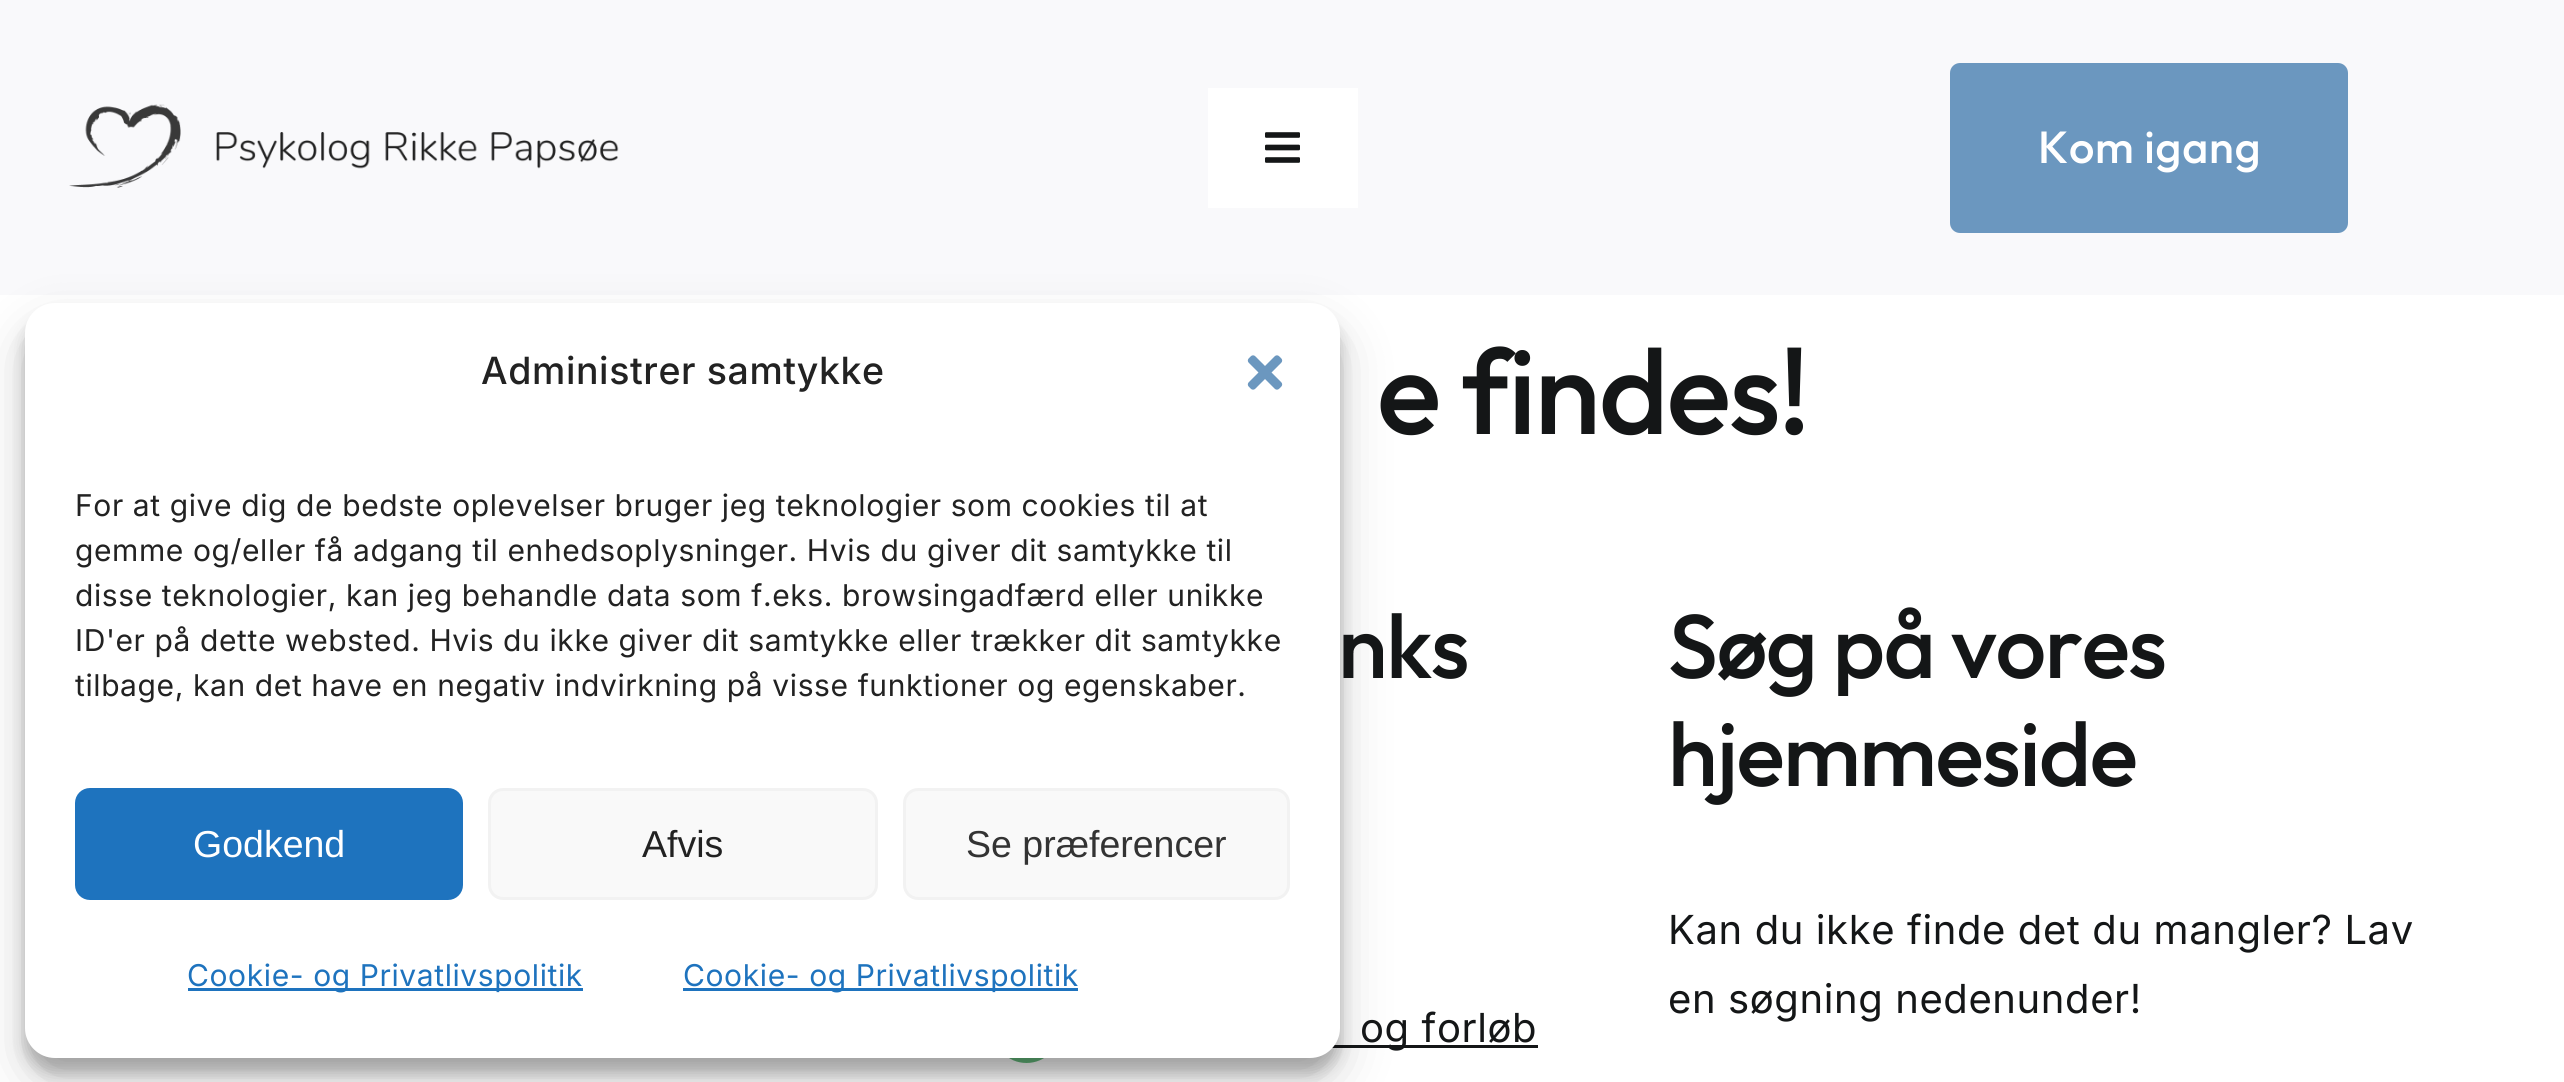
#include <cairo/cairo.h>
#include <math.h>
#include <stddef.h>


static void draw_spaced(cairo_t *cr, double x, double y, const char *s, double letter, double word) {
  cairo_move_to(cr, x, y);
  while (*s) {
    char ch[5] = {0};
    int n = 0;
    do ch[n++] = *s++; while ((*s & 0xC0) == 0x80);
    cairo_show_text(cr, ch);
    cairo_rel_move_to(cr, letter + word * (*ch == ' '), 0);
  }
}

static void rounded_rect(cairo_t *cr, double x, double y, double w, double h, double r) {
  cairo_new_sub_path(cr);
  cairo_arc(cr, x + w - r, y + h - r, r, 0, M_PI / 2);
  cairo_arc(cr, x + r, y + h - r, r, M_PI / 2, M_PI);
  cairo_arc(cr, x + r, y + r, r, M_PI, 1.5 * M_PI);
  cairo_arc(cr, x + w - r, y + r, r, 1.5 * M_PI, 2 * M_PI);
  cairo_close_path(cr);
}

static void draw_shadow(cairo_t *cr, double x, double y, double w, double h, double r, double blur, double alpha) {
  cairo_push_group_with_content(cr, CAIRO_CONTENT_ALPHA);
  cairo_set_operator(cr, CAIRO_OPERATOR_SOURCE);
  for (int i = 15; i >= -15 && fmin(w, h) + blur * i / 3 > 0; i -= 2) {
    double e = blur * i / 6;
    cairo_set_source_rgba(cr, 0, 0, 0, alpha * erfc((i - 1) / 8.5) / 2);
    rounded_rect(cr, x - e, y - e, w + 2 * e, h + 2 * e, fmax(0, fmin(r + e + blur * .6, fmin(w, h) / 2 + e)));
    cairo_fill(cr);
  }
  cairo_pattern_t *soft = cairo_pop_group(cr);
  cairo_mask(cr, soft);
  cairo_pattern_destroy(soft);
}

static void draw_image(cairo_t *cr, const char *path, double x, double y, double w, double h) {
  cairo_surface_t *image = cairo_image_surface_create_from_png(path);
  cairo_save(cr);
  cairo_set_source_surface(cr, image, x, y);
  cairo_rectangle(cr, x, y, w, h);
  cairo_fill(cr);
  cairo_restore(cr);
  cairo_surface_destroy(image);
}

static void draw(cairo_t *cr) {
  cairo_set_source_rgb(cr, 1, 1, 1);
  cairo_paint(cr);
  cairo_set_source_rgb(cr, 249 / 255.0, 249 / 255.0, 251 / 255.0);
  cairo_rectangle(cr, 0, 0, 2564, 295);
  cairo_fill(cr);
  cairo_set_source_rgb(cr, 101 / 255.0, 189 / 255.0, 125 / 255.0);
  rounded_rect(cr, 993, 995, 67, 68, 33.5);
  cairo_fill(cr);
  cairo_set_source_rgb(cr, 20 / 255.0, 22 / 255.0, 23 / 255.0);
  cairo_rectangle(cr, 1332, 1045, 206, 3);
  cairo_fill(cr);
  cairo_set_source_rgb(cr, 0, 0, 0);
  draw_shadow(cr, 25, 318, 1315, 755, 30, 7.5, 0.23);
  draw_shadow(cr, 25, 328, 1315, 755, 30, 25, 0.19);
  cairo_set_source_rgb(cr, 1, 1, 1);
  rounded_rect(cr, 25, 303, 1315, 755, 30);
  cairo_fill(cr);
  draw_image(cr, "images/1.png", 1247, 355, 36, 35);
  cairo_set_source_rgb(cr, 30 / 255.0, 115 / 255.0, 190 / 255.0);
  rounded_rect(cr, 76.5, 789.5, 385, 109, 13.5);
  cairo_fill_preserve(cr);
  cairo_set_line_width(cr, 3);
  cairo_stroke(cr);
  cairo_set_source_rgb(cr, 249 / 255.0, 249 / 255.0, 249 / 255.0);
  rounded_rect(cr, 489.5, 789.5, 387, 109, 13.5);
  cairo_fill_preserve(cr);
  cairo_set_source_rgb(cr, 242 / 255.0, 242 / 255.0, 242 / 255.0);
  cairo_stroke(cr);
  cairo_set_source_rgb(cr, 249 / 255.0, 249 / 255.0, 249 / 255.0);
  rounded_rect(cr, 904.5, 789.5, 384, 109, 13.5);
  cairo_fill_preserve(cr);
  cairo_set_source_rgb(cr, 242 / 255.0, 242 / 255.0, 242 / 255.0);
  cairo_stroke(cr);
  cairo_set_source_rgb(cr, 30 / 255.0, 115 / 255.0, 190 / 255.0);
  cairo_rectangle(cr, 188, 988, 395, 3);
  cairo_fill(cr);
  cairo_rectangle(cr, 683, 988, 395, 3);
  cairo_fill(cr);
  draw_image(cr, "images/2.png", 69, 104, 550, 84);
  cairo_set_source_rgb(cr, 1, 1, 1);
  cairo_rectangle(cr, 1208, 88, 150, 120);
  cairo_fill(cr);
  draw_image(cr, "images/3.png", 1265, 132, 35, 31);
  cairo_set_source_rgb(cr, 107 / 255.0, 151 / 255.0, 191 / 255.0);
  rounded_rect(cr, 1950, 63, 398, 170, 10);
  cairo_fill(cr);
  cairo_select_font_face(cr, "Inter Medium", CAIRO_FONT_SLANT_NORMAL, CAIRO_FONT_WEIGHT_NORMAL);
  cairo_set_font_size(cr, 37.5);
  cairo_set_source_rgb(cr, 34 / 255.0, 34 / 255.0, 34 / 255.0);
  draw_spaced(cr, 481, 384, "Administrer samtykke", 0.6, 0);
  cairo_select_font_face(cr, "Inter", CAIRO_FONT_SLANT_NORMAL, CAIRO_FONT_WEIGHT_NORMAL);
  cairo_set_font_size(cr, 30);
  draw_spaced(cr, 75, 516, "For at give dig de bedste oplevelser bruger jeg teknologier som cookies til at", 0.6, 0);
  draw_spaced(cr, 75, 561, "gemme og/eller få adgang til enhedsoplysninger. Hvis du giver dit samtykke til", 0.6, 0);
  draw_spaced(cr, 75, 606, "disse teknologier, kan jeg behandle data som f.eks. browsingadfærd eller unikke", 0.6, 0);
  draw_spaced(cr, 75, 651, "ID'er på dette websted. Hvis du ikke giver dit samtykke eller trækker dit samtykke", 0.6, 0);
  draw_spaced(cr, 75, 696, "tilbage, kan det have en negativ indvirkning på visse funktioner og egenskaber.", 0.6, 0);
  cairo_select_font_face(cr, "Liberation Sans", CAIRO_FONT_SLANT_NORMAL, CAIRO_FONT_WEIGHT_NORMAL);
  cairo_set_font_size(cr, 37.5);
  cairo_set_source_rgb(cr, 1, 1, 1);
  cairo_move_to(cr, 193, 857);
  cairo_show_text(cr, "Godkend");
  cairo_set_source_rgb(cr, 34 / 255.0, 34 / 255.0, 34 / 255.0);
  cairo_move_to(cr, 642, 857);
  cairo_show_text(cr, "Afvis");
  cairo_set_source_rgb(cr, 51 / 255.0, 51 / 255.0, 51 / 255.0);
  cairo_move_to(cr, 966, 857);
  cairo_show_text(cr, "Se præferencer");
  cairo_select_font_face(cr, "Inter", CAIRO_FONT_SLANT_NORMAL, CAIRO_FONT_WEIGHT_NORMAL);
  cairo_set_font_size(cr, 30);
  cairo_set_source_rgb(cr, 30 / 255.0, 115 / 255.0, 190 / 255.0);
  draw_spaced(cr, 187, 986, "Cookie- og Privatlivspolitik", 0.6, 0);
  draw_spaced(cr, 683, 986, "Cookie- og Privatlivspolitik", 0.6, 0);
  cairo_select_font_face(cr, "Outfit Medium", CAIRO_FONT_SLANT_NORMAL, CAIRO_FONT_WEIGHT_NORMAL);
  cairo_set_font_size(cr, 45);
  cairo_set_source_rgb(cr, 1, 1, 1);
  draw_spaced(cr, 2038, 163, "Kom igang", 0.75, 0);
  cairo_set_font_size(cr, 120);
  cairo_set_source_rgb(cr, 20 / 255.0, 22 / 255.0, 23 / 255.0);
  draw_spaced(cr, 1377, 434, "e findes!", -1.75, 0);
  cairo_set_font_size(cr, 90);
  draw_spaced(cr, 1338, 678, "nks", -1.4, 0);
  cairo_select_font_face(cr, "Inter", CAIRO_FONT_SLANT_NORMAL, CAIRO_FONT_WEIGHT_NORMAL);
  cairo_set_font_size(cr, 40);
  draw_spaced(cr, 1360, 1042, "og forløb", 0.6, 0);
  cairo_select_font_face(cr, "Outfit Medium", CAIRO_FONT_SLANT_NORMAL, CAIRO_FONT_WEIGHT_NORMAL);
  cairo_set_font_size(cr, 90);
  draw_spaced(cr, 1668, 678, "Søg på vores", -1.4, 0);
  draw_spaced(cr, 1668, 786, "hjemmeside", -1.4, 0);
  cairo_select_font_face(cr, "Inter", CAIRO_FONT_SLANT_NORMAL, CAIRO_FONT_WEIGHT_NORMAL);
  cairo_set_font_size(cr, 40);
  draw_spaced(cr, 1668, 944, "Kan du ikke finde det du mangler? Lav", 0.6, 0);
  draw_spaced(cr, 1668, 1013, "en søgning nedenunder!", 0.6, 0);
}

int main(void) {
  cairo_surface_t *surface = cairo_image_surface_create(CAIRO_FORMAT_RGB24, 2564, 1082);
  cairo_t *cr = cairo_create(surface);
  cairo_font_options_t *options = cairo_font_options_create();
  cairo_font_options_set_hint_metrics(options, CAIRO_HINT_METRICS_OFF);
  cairo_font_options_set_hint_style(options, CAIRO_HINT_STYLE_NONE);
  cairo_set_font_options(cr, options);
  cairo_set_miter_limit(cr, 4);
  draw(cr);
  cairo_surface_write_to_png(surface, "out.png");
  cairo_font_options_destroy(options);
  cairo_destroy(cr);
  cairo_surface_destroy(surface);
  return 0;
}
